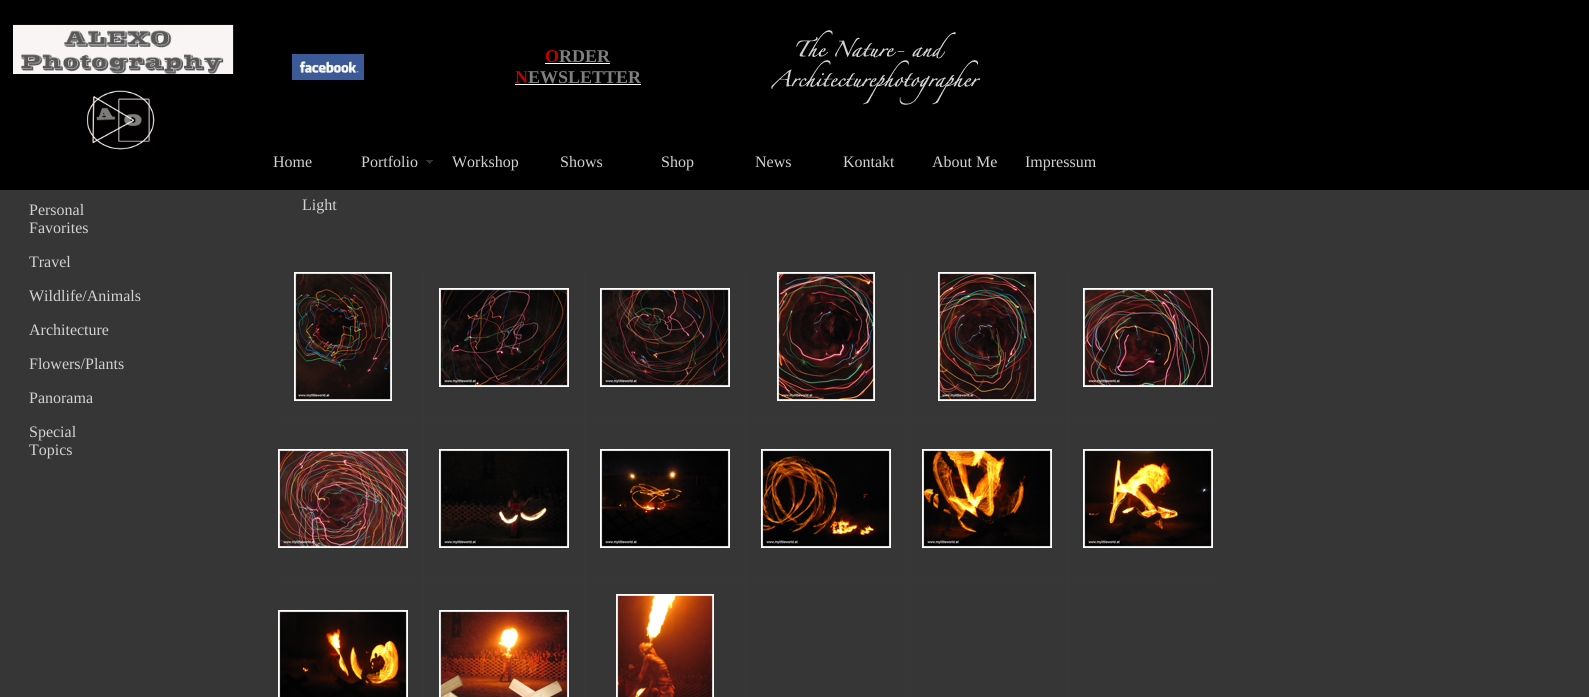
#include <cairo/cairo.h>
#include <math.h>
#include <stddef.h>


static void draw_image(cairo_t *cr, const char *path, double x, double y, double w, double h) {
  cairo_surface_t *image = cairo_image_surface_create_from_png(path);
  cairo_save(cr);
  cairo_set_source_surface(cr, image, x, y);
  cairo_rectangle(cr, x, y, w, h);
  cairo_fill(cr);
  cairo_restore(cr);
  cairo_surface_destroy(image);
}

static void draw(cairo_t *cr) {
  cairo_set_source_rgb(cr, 0, 0, 0);
  cairo_paint(cr);
  draw_image(cr, "images/1.png", 12, 24, 222, 50);
  draw_image(cr, "images/2.png", 87, 90, 68, 60);
  draw_image(cr, "images/3.png", 292, 54, 72, 26);
  cairo_set_source_rgb(cr, 1, 1, 1);
  cairo_rectangle(cr, 545, 63, 65, 1);
  cairo_fill(cr);
  cairo_rectangle(cr, 515, 84, 126, 1);
  cairo_fill(cr);
  draw_image(cr, "images/4.png", 771, 30, 210, 75);
  draw_image(cr, "images/5.png", 426, 160, 7, 4);
  cairo_set_source_rgb(cr, 54 / 255.0, 54 / 255.0, 54 / 255.0);
  cairo_rectangle(cr, 0, 190, 1589, 507);
  cairo_fill(cr);
  draw_image(cr, "images/6.png", 278, 272, 935, 425);
  cairo_select_font_face(cr, "Liberation Serif", CAIRO_FONT_SLANT_NORMAL, CAIRO_FONT_WEIGHT_BOLD);
  cairo_set_font_size(cr, 18);
  cairo_set_source_rgb(cr, 192 / 255.0, 0, 0);
  cairo_move_to(cr, 545, 62);
  cairo_show_text(cr, "O");
  cairo_set_source_rgb(cr, 128 / 255.0, 128 / 255.0, 128 / 255.0);
  cairo_move_to(cr, 559, 62);
  cairo_show_text(cr, "RDER");
  cairo_set_source_rgb(cr, 192 / 255.0, 0, 0);
  cairo_move_to(cr, 515, 83);
  cairo_show_text(cr, "N");
  cairo_set_source_rgb(cr, 128 / 255.0, 128 / 255.0, 128 / 255.0);
  cairo_move_to(cr, 528, 83);
  cairo_show_text(cr, "EWSLETTER");
  cairo_select_font_face(cr, "Liberation Serif", CAIRO_FONT_SLANT_NORMAL, CAIRO_FONT_WEIGHT_NORMAL);
  cairo_set_font_size(cr, 16);
  cairo_set_source_rgb(cr, 210 / 255.0, 210 / 255.0, 210 / 255.0);
  cairo_move_to(cr, 273, 167);
  cairo_show_text(cr, "Home");
  cairo_move_to(cr, 361, 167);
  cairo_show_text(cr, "Portfolio");
  cairo_move_to(cr, 452, 167);
  cairo_show_text(cr, "Workshop");
  cairo_move_to(cr, 560, 167);
  cairo_show_text(cr, "Shows");
  cairo_move_to(cr, 661, 167);
  cairo_show_text(cr, "Shop");
  cairo_move_to(cr, 755, 167);
  cairo_show_text(cr, "News");
  cairo_move_to(cr, 843, 167);
  cairo_show_text(cr, "Kontakt");
  cairo_move_to(cr, 932, 167);
  cairo_show_text(cr, "About Me");
  cairo_move_to(cr, 1025, 167);
  cairo_show_text(cr, "Impressum");
  cairo_move_to(cr, 29, 215);
  cairo_show_text(cr, "Personal");
  cairo_move_to(cr, 29, 233);
  cairo_show_text(cr, "Favorites");
  cairo_move_to(cr, 29, 267);
  cairo_show_text(cr, "Travel");
  cairo_move_to(cr, 29, 301);
  cairo_show_text(cr, "Wildlife/Animals");
  cairo_move_to(cr, 29, 335);
  cairo_show_text(cr, "Architecture");
  cairo_move_to(cr, 29, 369);
  cairo_show_text(cr, "Flowers/Plants");
  cairo_move_to(cr, 29, 403);
  cairo_show_text(cr, "Panorama");
  cairo_move_to(cr, 29, 437);
  cairo_show_text(cr, "Special");
  cairo_move_to(cr, 29, 455);
  cairo_show_text(cr, "Topics");
  cairo_move_to(cr, 302, 210);
  cairo_show_text(cr, "Light");
}

int main(void) {
  cairo_surface_t *surface = cairo_image_surface_create(CAIRO_FORMAT_RGB24, 1589, 697);
  cairo_t *cr = cairo_create(surface);
  cairo_font_options_t *options = cairo_font_options_create();
  cairo_font_options_set_hint_metrics(options, CAIRO_HINT_METRICS_OFF);
  cairo_font_options_set_hint_style(options, CAIRO_HINT_STYLE_NONE);
  cairo_set_font_options(cr, options);
  cairo_set_miter_limit(cr, 4);
  draw(cr);
  cairo_surface_write_to_png(surface, "out.png");
  cairo_font_options_destroy(options);
  cairo_destroy(cr);
  cairo_surface_destroy(surface);
  return 0;
}
